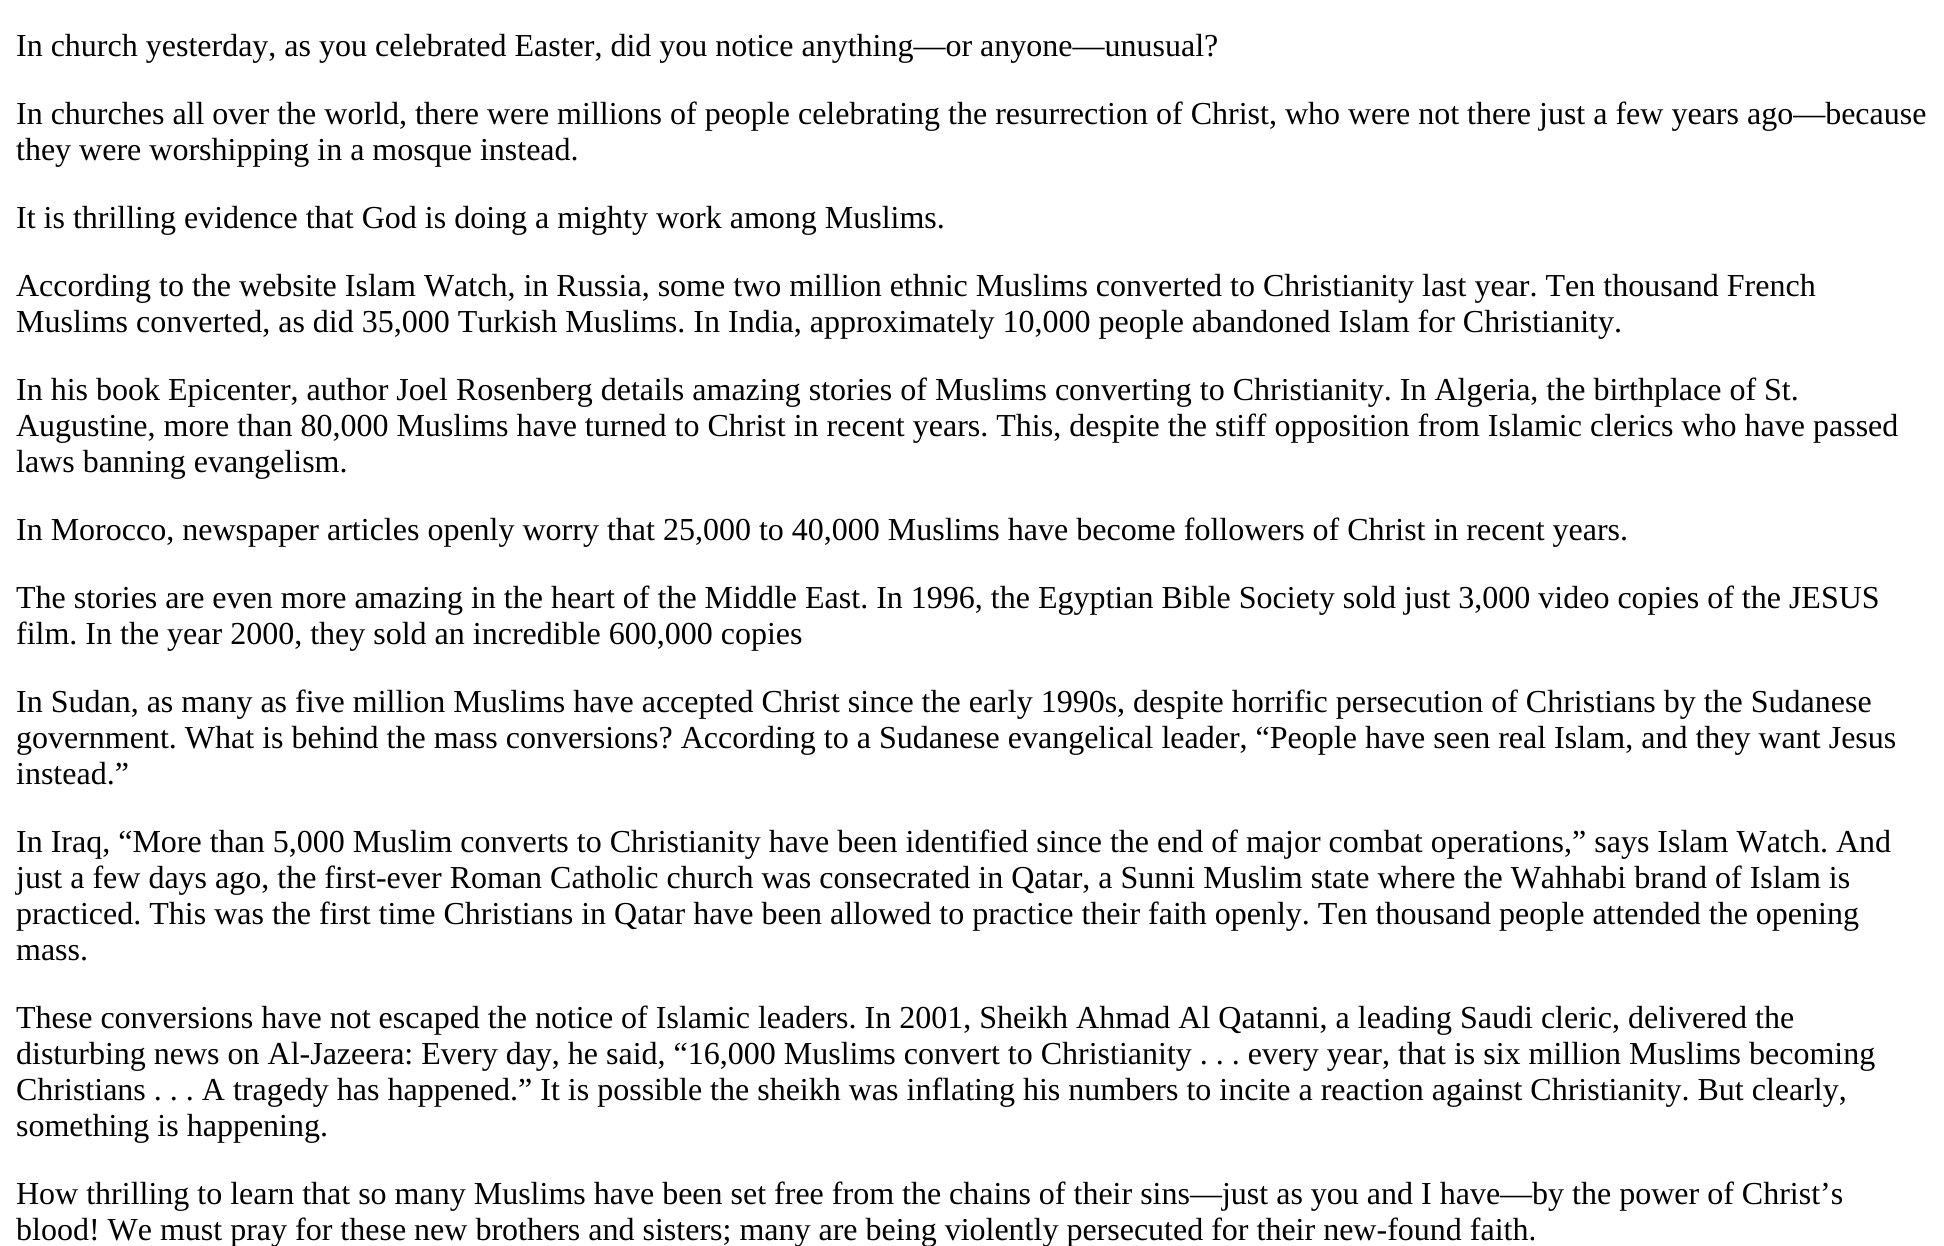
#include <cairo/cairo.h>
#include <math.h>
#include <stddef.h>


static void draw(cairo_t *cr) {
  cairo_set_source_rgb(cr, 1, 1, 1);
  cairo_paint(cr);
  cairo_select_font_face(cr, "Liberation Serif", CAIRO_FONT_SLANT_NORMAL, CAIRO_FONT_WEIGHT_NORMAL);
  cairo_set_font_size(cr, 32);
  cairo_set_source_rgb(cr, 0, 0, 0);
  cairo_move_to(cr, 16, 56);
  cairo_show_text(cr, "In church yesterday, as you celebrated Easter, did you notice anything—or anyone—unusual?");
  cairo_move_to(cr, 16, 124);
  cairo_show_text(cr, "In churches all over the world, there were millions of people celebrating the resurrection of Christ, who were not there just a few years ago—because");
  cairo_move_to(cr, 16, 160);
  cairo_show_text(cr, "they were worshipping in a mosque instead.");
  cairo_move_to(cr, 16, 228);
  cairo_show_text(cr, "It is thrilling evidence that God is doing a mighty work among Muslims.");
  cairo_move_to(cr, 16, 296);
  cairo_show_text(cr, "According to the website Islam Watch, in Russia, some two million ethnic Muslims converted to Christianity last year. Ten thousand French");
  cairo_move_to(cr, 16, 332);
  cairo_show_text(cr, "Muslims converted, as did 35,000 Turkish Muslims. In India, approximately 10,000 people abandoned Islam for Christianity.");
  cairo_move_to(cr, 16, 400);
  cairo_show_text(cr, "In his book Epicenter, author Joel Rosenberg details amazing stories of Muslims converting to Christianity. In Algeria, the birthplace of St.");
  cairo_move_to(cr, 16, 436);
  cairo_show_text(cr, "Augustine, more than 80,000 Muslims have turned to Christ in recent years. This, despite the stiff opposition from Islamic clerics who have passed");
  cairo_move_to(cr, 16, 472);
  cairo_show_text(cr, "laws banning evangelism.");
  cairo_move_to(cr, 16, 540);
  cairo_show_text(cr, "In Morocco, newspaper articles openly worry that 25,000 to 40,000 Muslims have become followers of Christ in recent years.");
  cairo_move_to(cr, 16, 608);
  cairo_show_text(cr, "The stories are even more amazing in the heart of the Middle East. In 1996, the Egyptian Bible Society sold just 3,000 video copies of the JESUS");
  cairo_move_to(cr, 16, 644);
  cairo_show_text(cr, "film. In the year 2000, they sold an incredible 600,000 copies");
  cairo_move_to(cr, 16, 712);
  cairo_show_text(cr, "In Sudan, as many as five million Muslims have accepted Christ since the early 1990s, despite horrific persecution of Christians by the Sudanese");
  cairo_move_to(cr, 16, 748);
  cairo_show_text(cr, "government. What is behind the mass conversions? According to a Sudanese evangelical leader, “People have seen real Islam, and they want Jesus");
  cairo_move_to(cr, 16, 784);
  cairo_show_text(cr, "instead.”");
  cairo_move_to(cr, 16, 852);
  cairo_show_text(cr, "In Iraq, “More than 5,000 Muslim converts to Christianity have been identified since the end of major combat operations,” says Islam Watch. And");
  cairo_move_to(cr, 16, 888);
  cairo_show_text(cr, "just a few days ago, the first-ever Roman Catholic church was consecrated in Qatar, a Sunni Muslim state where the Wahhabi brand of Islam is");
  cairo_move_to(cr, 16, 924);
  cairo_show_text(cr, "practiced. This was the first time Christians in Qatar have been allowed to practice their faith openly. Ten thousand people attended the opening");
  cairo_move_to(cr, 16, 960);
  cairo_show_text(cr, "mass.");
  cairo_move_to(cr, 16, 1028);
  cairo_show_text(cr, "These conversions have not escaped the notice of Islamic leaders. In 2001, Sheikh Ahmad Al Qatanni, a leading Saudi cleric, delivered the");
  cairo_move_to(cr, 16, 1064);
  cairo_show_text(cr, "disturbing news on Al-Jazeera: Every day, he said, “16,000 Muslims convert to Christianity . . . every year, that is six million Muslims becoming");
  cairo_move_to(cr, 16, 1100);
  cairo_show_text(cr, "Christians . . . A tragedy has happened.” It is possible the sheikh was inflating his numbers to incite a reaction against Christianity. But clearly,");
  cairo_move_to(cr, 16, 1136);
  cairo_show_text(cr, "something is happening.");
  cairo_move_to(cr, 16, 1204);
  cairo_show_text(cr, "How thrilling to learn that so many Muslims have been set free from the chains of their sins—just as you and I have—by the power of Christ’s");
  cairo_move_to(cr, 16, 1240);
  cairo_show_text(cr, "blood! We must pray for these new brothers and sisters; many are being violently persecuted for their new-found faith.");
}

int main(void) {
  cairo_surface_t *surface = cairo_image_surface_create(CAIRO_FORMAT_RGB24, 1944, 1246);
  cairo_t *cr = cairo_create(surface);
  cairo_font_options_t *options = cairo_font_options_create();
  cairo_font_options_set_hint_metrics(options, CAIRO_HINT_METRICS_OFF);
  cairo_font_options_set_hint_style(options, CAIRO_HINT_STYLE_NONE);
  cairo_set_font_options(cr, options);
  cairo_set_miter_limit(cr, 4);
  draw(cr);
  cairo_surface_write_to_png(surface, "out.png");
  cairo_font_options_destroy(options);
  cairo_destroy(cr);
  cairo_surface_destroy(surface);
  return 0;
}
